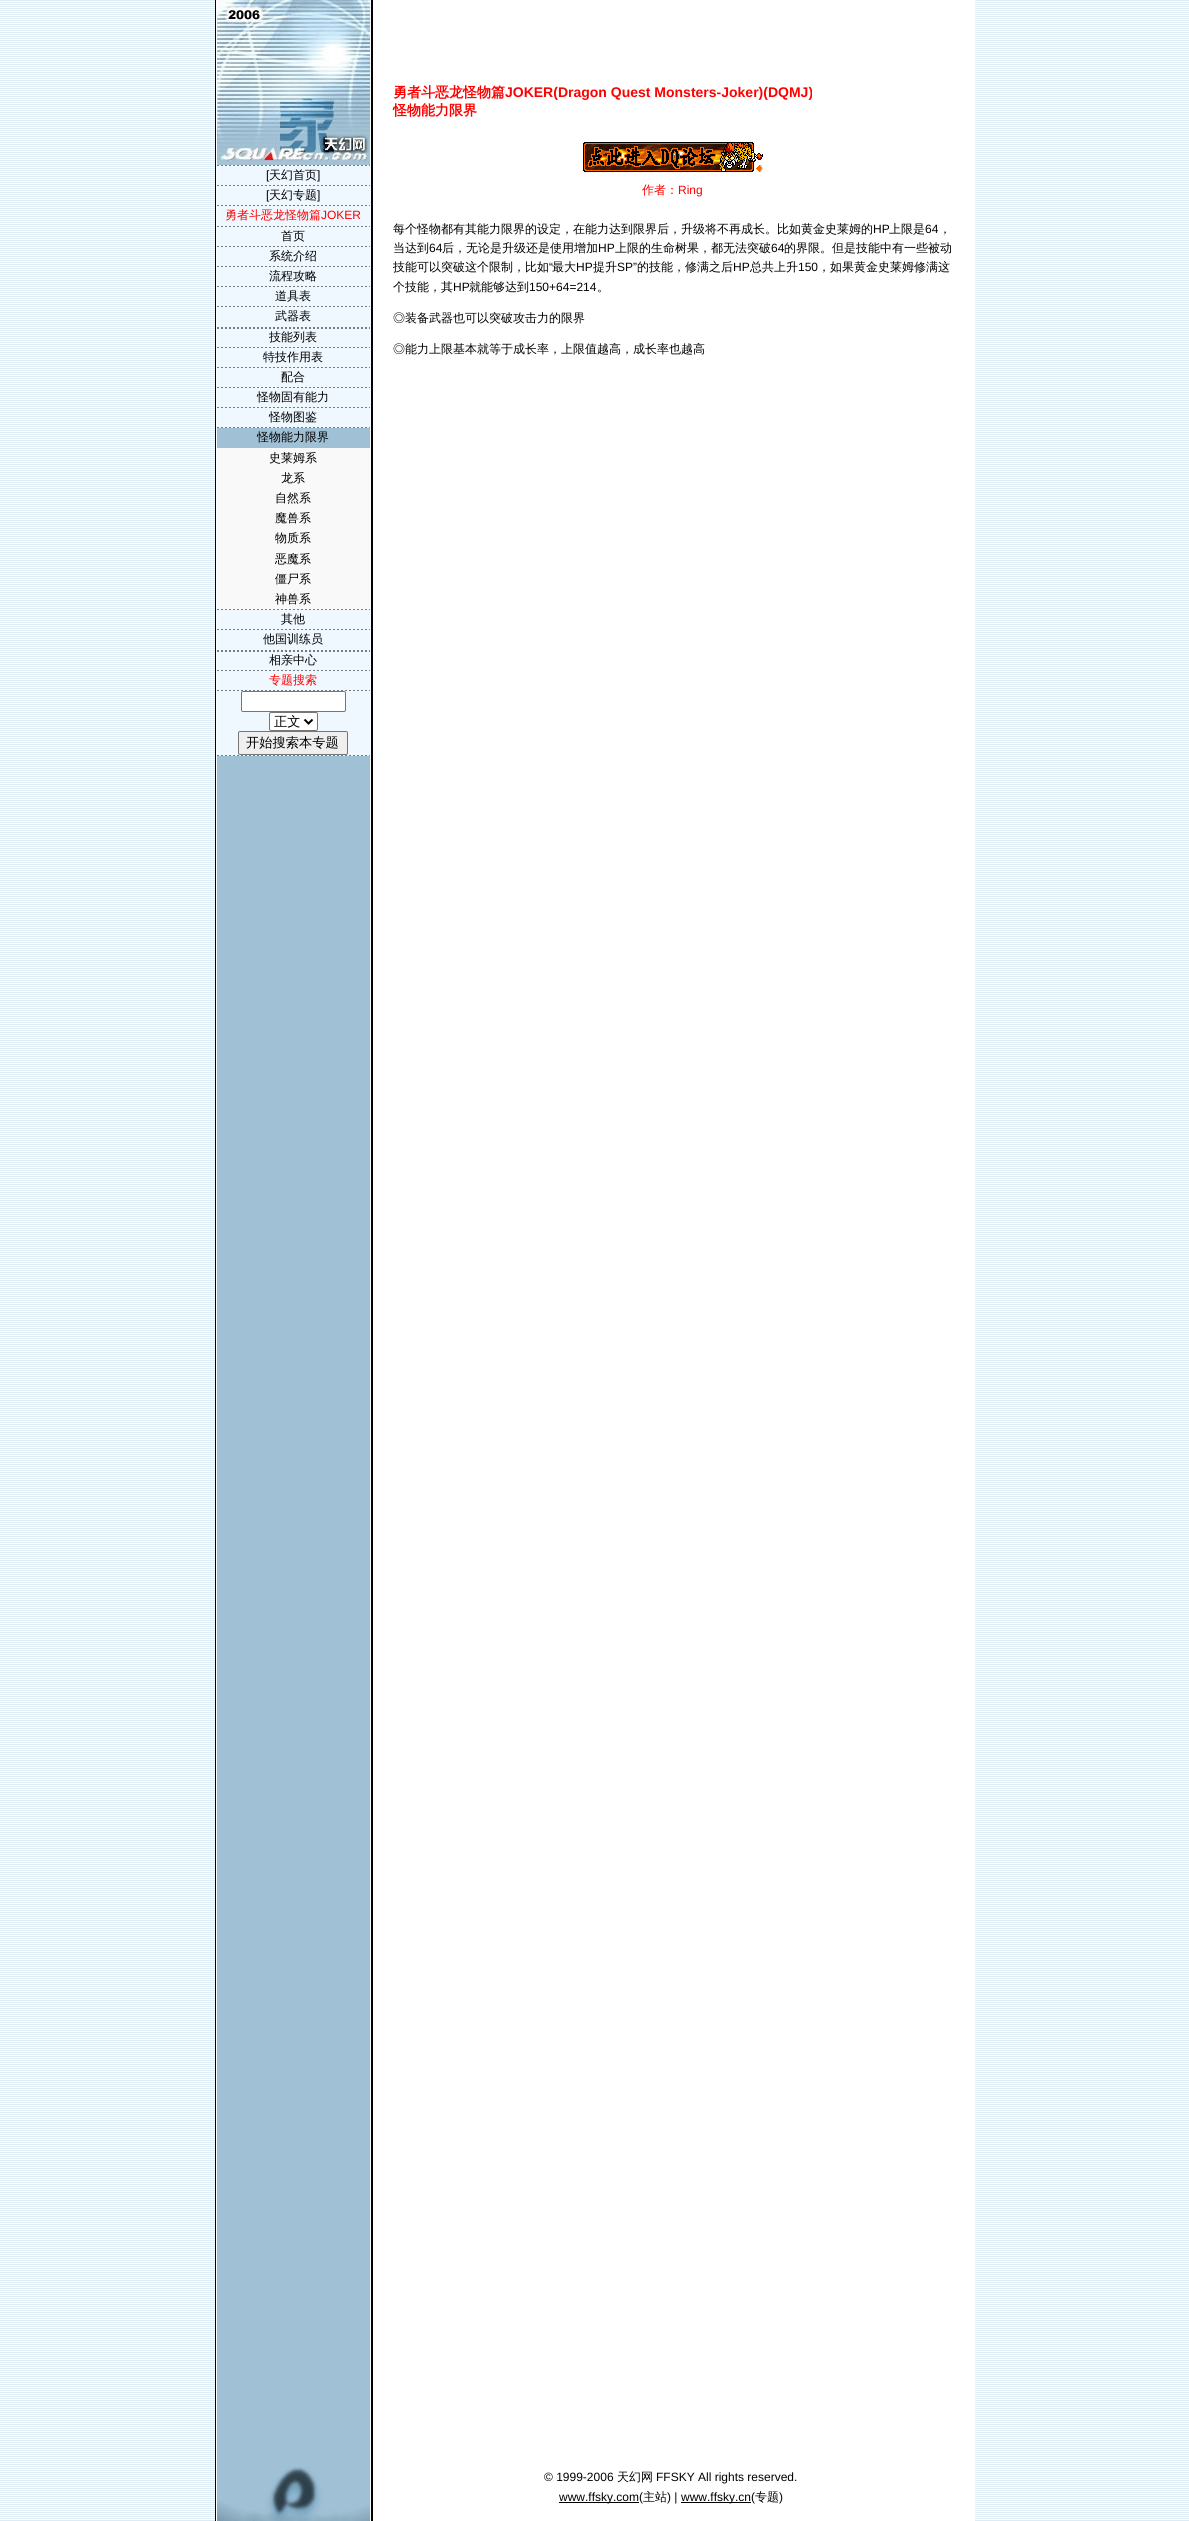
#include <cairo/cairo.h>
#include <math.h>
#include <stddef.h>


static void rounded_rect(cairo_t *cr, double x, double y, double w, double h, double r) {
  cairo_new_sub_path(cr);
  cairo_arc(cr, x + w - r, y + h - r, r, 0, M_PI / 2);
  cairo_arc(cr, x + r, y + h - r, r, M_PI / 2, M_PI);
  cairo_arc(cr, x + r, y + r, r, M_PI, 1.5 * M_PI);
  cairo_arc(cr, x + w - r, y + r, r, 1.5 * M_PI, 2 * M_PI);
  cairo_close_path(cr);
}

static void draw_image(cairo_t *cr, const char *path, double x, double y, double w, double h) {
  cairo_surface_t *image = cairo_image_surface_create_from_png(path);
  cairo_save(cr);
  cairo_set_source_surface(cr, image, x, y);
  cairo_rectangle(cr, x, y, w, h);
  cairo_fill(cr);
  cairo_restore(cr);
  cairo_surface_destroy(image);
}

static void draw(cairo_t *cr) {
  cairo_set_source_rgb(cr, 1, 1, 1);
  cairo_paint(cr);
  draw_image(cr, "images/1.png", 0, 0, 1189, 2521);
  cairo_set_source_rgb(cr, 1, 1, 1);
  cairo_rectangle(cr, 373, 0, 602, 2521);
  cairo_fill(cr);
  draw_image(cr, "images/2.png", 215, 0, 158, 2521);
  draw_image(cr, "images/3.png", 217, 0, 153, 165);
  cairo_set_source_rgb(cr, 239 / 255.0, 247 / 255.0, 1);
  cairo_rectangle(cr, 217, 165, 153, 591);
  cairo_fill(cr);
  draw_image(cr, "images/4.png", 217, 755, 153, 1);
  draw_image(cr, "images/4.png", 217, 165, 153, 1);
  draw_image(cr, "images/4.png", 217, 185, 153, 1);
  draw_image(cr, "images/4.png", 217, 205, 153, 1);
  draw_image(cr, "images/4.png", 217, 226, 153, 1);
  draw_image(cr, "images/4.png", 217, 246, 153, 1);
  draw_image(cr, "images/4.png", 217, 266, 153, 1);
  draw_image(cr, "images/4.png", 217, 286, 153, 1);
  draw_image(cr, "images/4.png", 217, 306, 153, 1);
  draw_image(cr, "images/5.png", 217, 327, 153, 2);
  draw_image(cr, "images/4.png", 217, 347, 153, 1);
  draw_image(cr, "images/4.png", 217, 367, 153, 1);
  draw_image(cr, "images/4.png", 217, 387, 153, 1);
  draw_image(cr, "images/4.png", 217, 407, 153, 1);
  draw_image(cr, "images/4.png", 217, 427, 153, 1);
  cairo_set_source_rgb(cr, 160 / 255.0, 193 / 255.0, 213 / 255.0);
  cairo_rectangle(cr, 217, 428, 153, 20);
  cairo_fill(cr);
  cairo_set_source_rgb(cr, 249 / 255.0, 249 / 255.0, 249 / 255.0);
  cairo_rectangle(cr, 217, 448, 153, 161);
  cairo_fill(cr);
  draw_image(cr, "images/4.png", 217, 609, 153, 1);
  draw_image(cr, "images/4.png", 217, 629, 153, 1);
  draw_image(cr, "images/5.png", 217, 650, 153, 2);
  draw_image(cr, "images/4.png", 217, 670, 153, 1);
  draw_image(cr, "images/4.png", 217, 690, 153, 1);
  cairo_set_source_rgb(cr, 1, 1, 1);
  rounded_rect(cr, 241.5, 691.5, 104, 20, 1.5);
  cairo_fill_preserve(cr);
  cairo_set_source_rgb(cr, 118 / 255.0, 118 / 255.0, 118 / 255.0);
  cairo_set_line_width(cr, 1);
  cairo_stroke(cr);
  cairo_set_source_rgb(cr, 1, 1, 1);
  rounded_rect(cr, 269.5, 712.5, 48, 18, 1.5);
  cairo_fill_preserve(cr);
  cairo_set_source_rgb(cr, 118 / 255.0, 118 / 255.0, 118 / 255.0);
  cairo_stroke(cr);
  cairo_new_path(cr);
  cairo_move_to(cr, 304.5, 719.5);
  cairo_line_to(cr, 308.5, 723.5);
  cairo_line_to(cr, 312.5, 719.5);
  cairo_set_source_rgb(cr, 0, 0, 0);
  cairo_set_line_width(cr, 2);
  cairo_stroke(cr);
  cairo_set_source_rgb(cr, 239 / 255.0, 239 / 255.0, 239 / 255.0);
  rounded_rect(cr, 238.5, 731.5, 109, 23, 1.5);
  cairo_fill_preserve(cr);
  cairo_set_source_rgb(cr, 118 / 255.0, 118 / 255.0, 118 / 255.0);
  cairo_set_line_width(cr, 1);
  cairo_stroke(cr);
  draw_image(cr, "images/6.png", 583, 142, 180, 30);
  draw_image(cr, "images/7.png", 217, 2467, 153, 54);
  cairo_set_source_rgb(cr, 0, 0, 0);
  cairo_rectangle(cr, 559, 2502, 80, 1);
  cairo_fill(cr);
  cairo_rectangle(cr, 681, 2502, 70, 1);
  cairo_fill(cr);
  cairo_select_font_face(cr, "WenQuanYi Zen Hei", CAIRO_FONT_SLANT_NORMAL, CAIRO_FONT_WEIGHT_BOLD);
  cairo_set_font_size(cr, 14);
  cairo_set_source_rgb(cr, 1, 0, 0);
  cairo_move_to(cr, 393, 97);
  cairo_show_text(cr, "勇者斗恶龙怪物篇");
  cairo_select_font_face(cr, "Liberation Sans", CAIRO_FONT_SLANT_NORMAL, CAIRO_FONT_WEIGHT_BOLD);
  cairo_move_to(cr, 505, 97);
  cairo_show_text(cr, "JOKER(Dragon Quest Monsters-Joker)(DQMJ)");
  cairo_select_font_face(cr, "WenQuanYi Zen Hei", CAIRO_FONT_SLANT_NORMAL, CAIRO_FONT_WEIGHT_BOLD);
  cairo_move_to(cr, 393, 115);
  cairo_show_text(cr, "怪物能力限界");
  cairo_select_font_face(cr, "Liberation Sans", CAIRO_FONT_SLANT_NORMAL, CAIRO_FONT_WEIGHT_NORMAL);
  cairo_set_font_size(cr, 12);
  cairo_set_source_rgb(cr, 0, 0, 0);
  cairo_move_to(cr, 266, 179);
  cairo_show_text(cr, "[");
  cairo_select_font_face(cr, "WenQuanYi Zen Hei Medium", CAIRO_FONT_SLANT_NORMAL, CAIRO_FONT_WEIGHT_NORMAL);
  cairo_move_to(cr, 269, 179);
  cairo_show_text(cr, "天幻首页");
  cairo_select_font_face(cr, "Liberation Sans", CAIRO_FONT_SLANT_NORMAL, CAIRO_FONT_WEIGHT_NORMAL);
  cairo_move_to(cr, 317, 179);
  cairo_show_text(cr, "]");
  cairo_move_to(cr, 266, 199);
  cairo_show_text(cr, "[");
  cairo_select_font_face(cr, "WenQuanYi Zen Hei Medium", CAIRO_FONT_SLANT_NORMAL, CAIRO_FONT_WEIGHT_NORMAL);
  cairo_move_to(cr, 269, 199);
  cairo_show_text(cr, "天幻专题");
  cairo_select_font_face(cr, "Liberation Sans", CAIRO_FONT_SLANT_NORMAL, CAIRO_FONT_WEIGHT_NORMAL);
  cairo_move_to(cr, 317, 199);
  cairo_show_text(cr, "]");
  cairo_select_font_face(cr, "WenQuanYi Zen Hei Medium", CAIRO_FONT_SLANT_NORMAL, CAIRO_FONT_WEIGHT_NORMAL);
  cairo_set_source_rgb(cr, 1, 0, 0);
  cairo_move_to(cr, 225, 219);
  cairo_show_text(cr, "勇者斗恶龙怪物篇");
  cairo_select_font_face(cr, "Liberation Sans", CAIRO_FONT_SLANT_NORMAL, CAIRO_FONT_WEIGHT_NORMAL);
  cairo_move_to(cr, 321, 219);
  cairo_show_text(cr, "JOKER");
  cairo_select_font_face(cr, "WenQuanYi Zen Hei Medium", CAIRO_FONT_SLANT_NORMAL, CAIRO_FONT_WEIGHT_NORMAL);
  cairo_set_source_rgb(cr, 0, 0, 0);
  cairo_move_to(cr, 281, 240);
  cairo_show_text(cr, "首页");
  cairo_move_to(cr, 269, 260);
  cairo_show_text(cr, "系统介绍");
  cairo_move_to(cr, 269, 280);
  cairo_show_text(cr, "流程攻略");
  cairo_move_to(cr, 275, 300);
  cairo_show_text(cr, "道具表");
  cairo_move_to(cr, 275, 320);
  cairo_show_text(cr, "武器表");
  cairo_move_to(cr, 269, 341);
  cairo_show_text(cr, "技能列表");
  cairo_move_to(cr, 263, 361);
  cairo_show_text(cr, "特技作用表");
  cairo_move_to(cr, 281, 381);
  cairo_show_text(cr, "配合");
  cairo_move_to(cr, 257, 401);
  cairo_show_text(cr, "怪物固有能力");
  cairo_move_to(cr, 269, 421);
  cairo_show_text(cr, "怪物图鉴");
  cairo_move_to(cr, 257, 441);
  cairo_show_text(cr, "怪物能力限界");
  cairo_move_to(cr, 269, 462);
  cairo_show_text(cr, "史莱姆系");
  cairo_move_to(cr, 281, 482);
  cairo_show_text(cr, "龙系");
  cairo_move_to(cr, 275, 502);
  cairo_show_text(cr, "自然系");
  cairo_move_to(cr, 275, 522);
  cairo_show_text(cr, "魔兽系");
  cairo_move_to(cr, 275, 542);
  cairo_show_text(cr, "物质系");
  cairo_move_to(cr, 275, 563);
  cairo_show_text(cr, "恶魔系");
  cairo_move_to(cr, 275, 583);
  cairo_show_text(cr, "僵尸系");
  cairo_move_to(cr, 275, 603);
  cairo_show_text(cr, "神兽系");
  cairo_move_to(cr, 281, 623);
  cairo_show_text(cr, "其他");
  cairo_move_to(cr, 263, 643);
  cairo_show_text(cr, "他国训练员");
  cairo_move_to(cr, 269, 664);
  cairo_show_text(cr, "相亲中心");
  cairo_set_source_rgb(cr, 1, 0, 0);
  cairo_move_to(cr, 269, 684);
  cairo_show_text(cr, "专题搜索");
  cairo_set_font_size(cr, 13.25);
  cairo_set_source_rgb(cr, 0, 0, 0);
  cairo_move_to(cr, 274, 726);
  cairo_show_text(cr, "正文");
  cairo_move_to(cr, 246, 747);
  cairo_show_text(cr, "开始搜索本专题");
  cairo_set_font_size(cr, 12);
  cairo_set_source_rgb(cr, 1, 0, 0);
  cairo_move_to(cr, 642, 194);
  cairo_show_text(cr, "作者：");
  cairo_select_font_face(cr, "Liberation Sans", CAIRO_FONT_SLANT_NORMAL, CAIRO_FONT_WEIGHT_NORMAL);
  cairo_move_to(cr, 678, 194);
  cairo_show_text(cr, "Ring");
  cairo_select_font_face(cr, "WenQuanYi Zen Hei Medium", CAIRO_FONT_SLANT_NORMAL, CAIRO_FONT_WEIGHT_NORMAL);
  cairo_set_source_rgb(cr, 0, 0, 0);
  cairo_move_to(cr, 393, 233);
  cairo_show_text(cr, "每个怪物都有其能力限界的设定，在能力达到限界后，升级将不再成长。比如黄金史莱姆的");
  cairo_select_font_face(cr, "Liberation Sans", CAIRO_FONT_SLANT_NORMAL, CAIRO_FONT_WEIGHT_NORMAL);
  cairo_move_to(cr, 873, 233);
  cairo_show_text(cr, "HP");
  cairo_select_font_face(cr, "WenQuanYi Zen Hei Medium", CAIRO_FONT_SLANT_NORMAL, CAIRO_FONT_WEIGHT_NORMAL);
  cairo_move_to(cr, 889, 233);
  cairo_show_text(cr, "上限是");
  cairo_select_font_face(cr, "Liberation Sans", CAIRO_FONT_SLANT_NORMAL, CAIRO_FONT_WEIGHT_NORMAL);
  cairo_move_to(cr, 925, 233);
  cairo_show_text(cr, "64");
  cairo_select_font_face(cr, "WenQuanYi Zen Hei Medium", CAIRO_FONT_SLANT_NORMAL, CAIRO_FONT_WEIGHT_NORMAL);
  cairo_move_to(cr, 939, 233);
  cairo_show_text(cr, "，");
  cairo_move_to(cr, 393, 252);
  cairo_show_text(cr, "当达到");
  cairo_select_font_face(cr, "Liberation Sans", CAIRO_FONT_SLANT_NORMAL, CAIRO_FONT_WEIGHT_NORMAL);
  cairo_move_to(cr, 429, 252);
  cairo_show_text(cr, "64");
  cairo_select_font_face(cr, "WenQuanYi Zen Hei Medium", CAIRO_FONT_SLANT_NORMAL, CAIRO_FONT_WEIGHT_NORMAL);
  cairo_move_to(cr, 442, 252);
  cairo_show_text(cr, "后，无论是升级还是使用增加");
  cairo_select_font_face(cr, "Liberation Sans", CAIRO_FONT_SLANT_NORMAL, CAIRO_FONT_WEIGHT_NORMAL);
  cairo_move_to(cr, 598, 252);
  cairo_show_text(cr, "HP");
  cairo_select_font_face(cr, "WenQuanYi Zen Hei Medium", CAIRO_FONT_SLANT_NORMAL, CAIRO_FONT_WEIGHT_NORMAL);
  cairo_move_to(cr, 615, 252);
  cairo_show_text(cr, "上限的生命树果，都无法突破");
  cairo_select_font_face(cr, "Liberation Sans", CAIRO_FONT_SLANT_NORMAL, CAIRO_FONT_WEIGHT_NORMAL);
  cairo_move_to(cr, 771, 252);
  cairo_show_text(cr, "64");
  cairo_select_font_face(cr, "WenQuanYi Zen Hei Medium", CAIRO_FONT_SLANT_NORMAL, CAIRO_FONT_WEIGHT_NORMAL);
  cairo_move_to(cr, 784, 252);
  cairo_show_text(cr, "的界限。但是技能中有一些被动");
  cairo_move_to(cr, 393, 271);
  cairo_show_text(cr, "技能可以突破这个限制，比如");
  cairo_select_font_face(cr, "Liberation Sans", CAIRO_FONT_SLANT_NORMAL, CAIRO_FONT_WEIGHT_NORMAL);
  cairo_move_to(cr, 549, 271);
  cairo_show_text(cr, "“");
  cairo_select_font_face(cr, "WenQuanYi Zen Hei Medium", CAIRO_FONT_SLANT_NORMAL, CAIRO_FONT_WEIGHT_NORMAL);
  cairo_move_to(cr, 552, 271);
  cairo_show_text(cr, "最大");
  cairo_select_font_face(cr, "Liberation Sans", CAIRO_FONT_SLANT_NORMAL, CAIRO_FONT_WEIGHT_NORMAL);
  cairo_move_to(cr, 576, 271);
  cairo_show_text(cr, "HP");
  cairo_select_font_face(cr, "WenQuanYi Zen Hei Medium", CAIRO_FONT_SLANT_NORMAL, CAIRO_FONT_WEIGHT_NORMAL);
  cairo_move_to(cr, 593, 271);
  cairo_show_text(cr, "提升");
  cairo_select_font_face(cr, "Liberation Sans", CAIRO_FONT_SLANT_NORMAL, CAIRO_FONT_WEIGHT_NORMAL);
  cairo_move_to(cr, 617, 271);
  cairo_show_text(cr, "SP”");
  cairo_select_font_face(cr, "WenQuanYi Zen Hei Medium", CAIRO_FONT_SLANT_NORMAL, CAIRO_FONT_WEIGHT_NORMAL);
  cairo_move_to(cr, 637, 271);
  cairo_show_text(cr, "的技能，修满之后");
  cairo_select_font_face(cr, "Liberation Sans", CAIRO_FONT_SLANT_NORMAL, CAIRO_FONT_WEIGHT_NORMAL);
  cairo_move_to(cr, 733, 271);
  cairo_show_text(cr, "HP");
  cairo_select_font_face(cr, "WenQuanYi Zen Hei Medium", CAIRO_FONT_SLANT_NORMAL, CAIRO_FONT_WEIGHT_NORMAL);
  cairo_move_to(cr, 750, 271);
  cairo_show_text(cr, "总共上升");
  cairo_select_font_face(cr, "Liberation Sans", CAIRO_FONT_SLANT_NORMAL, CAIRO_FONT_WEIGHT_NORMAL);
  cairo_move_to(cr, 798, 271);
  cairo_show_text(cr, "150");
  cairo_select_font_face(cr, "WenQuanYi Zen Hei Medium", CAIRO_FONT_SLANT_NORMAL, CAIRO_FONT_WEIGHT_NORMAL);
  cairo_move_to(cr, 818, 271);
  cairo_show_text(cr, "，如果黄金史莱姆修满这");
  cairo_move_to(cr, 393, 291);
  cairo_show_text(cr, "个技能，其");
  cairo_select_font_face(cr, "Liberation Sans", CAIRO_FONT_SLANT_NORMAL, CAIRO_FONT_WEIGHT_NORMAL);
  cairo_move_to(cr, 453, 291);
  cairo_show_text(cr, "HP");
  cairo_select_font_face(cr, "WenQuanYi Zen Hei Medium", CAIRO_FONT_SLANT_NORMAL, CAIRO_FONT_WEIGHT_NORMAL);
  cairo_move_to(cr, 469, 291);
  cairo_show_text(cr, "就能够达到");
  cairo_select_font_face(cr, "Liberation Sans", CAIRO_FONT_SLANT_NORMAL, CAIRO_FONT_WEIGHT_NORMAL);
  cairo_move_to(cr, 529, 291);
  cairo_show_text(cr, "150+64=214");
  cairo_select_font_face(cr, "WenQuanYi Zen Hei Medium", CAIRO_FONT_SLANT_NORMAL, CAIRO_FONT_WEIGHT_NORMAL);
  cairo_move_to(cr, 597, 291);
  cairo_show_text(cr, "。");
  cairo_move_to(cr, 393, 322);
  cairo_show_text(cr, "◎装备武器也可以突破攻击力的限界");
  cairo_move_to(cr, 393, 353);
  cairo_show_text(cr, "◎能力上限基本就等于成长率，上限值越高，成长率也越高");
  cairo_select_font_face(cr, "Liberation Sans", CAIRO_FONT_SLANT_NORMAL, CAIRO_FONT_WEIGHT_NORMAL);
  cairo_move_to(cr, 544, 2481);
  cairo_show_text(cr, "© 1999-2006");
  cairo_select_font_face(cr, "WenQuanYi Zen Hei Medium", CAIRO_FONT_SLANT_NORMAL, CAIRO_FONT_WEIGHT_NORMAL);
  cairo_move_to(cr, 617, 2481);
  cairo_show_text(cr, "天幻网");
  cairo_select_font_face(cr, "Liberation Sans", CAIRO_FONT_SLANT_NORMAL, CAIRO_FONT_WEIGHT_NORMAL);
  cairo_move_to(cr, 656, 2481);
  cairo_show_text(cr, "FFSKY All rights reserved.");
  cairo_move_to(cr, 559, 2501);
  cairo_show_text(cr, "www.ffsky.com(");
  cairo_select_font_face(cr, "WenQuanYi Zen Hei Medium", CAIRO_FONT_SLANT_NORMAL, CAIRO_FONT_WEIGHT_NORMAL);
  cairo_move_to(cr, 643, 2501);
  cairo_show_text(cr, "主站");
  cairo_select_font_face(cr, "Liberation Sans", CAIRO_FONT_SLANT_NORMAL, CAIRO_FONT_WEIGHT_NORMAL);
  cairo_move_to(cr, 667, 2501);
  cairo_show_text(cr, ") |");
  cairo_move_to(cr, 681, 2501);
  cairo_show_text(cr, "www.ffsky.cn(");
  cairo_select_font_face(cr, "WenQuanYi Zen Hei Medium", CAIRO_FONT_SLANT_NORMAL, CAIRO_FONT_WEIGHT_NORMAL);
  cairo_move_to(cr, 755, 2501);
  cairo_show_text(cr, "专题");
  cairo_select_font_face(cr, "Liberation Sans", CAIRO_FONT_SLANT_NORMAL, CAIRO_FONT_WEIGHT_NORMAL);
  cairo_move_to(cr, 779, 2501);
  cairo_show_text(cr, ")");
}

int main(void) {
  cairo_surface_t *surface = cairo_image_surface_create(CAIRO_FORMAT_RGB24, 1189, 2521);
  cairo_t *cr = cairo_create(surface);
  cairo_font_options_t *options = cairo_font_options_create();
  cairo_font_options_set_hint_metrics(options, CAIRO_HINT_METRICS_OFF);
  cairo_font_options_set_hint_style(options, CAIRO_HINT_STYLE_NONE);
  cairo_set_font_options(cr, options);
  cairo_set_miter_limit(cr, 4);
  draw(cr);
  cairo_surface_write_to_png(surface, "out.png");
  cairo_font_options_destroy(options);
  cairo_destroy(cr);
  cairo_surface_destroy(surface);
  return 0;
}
